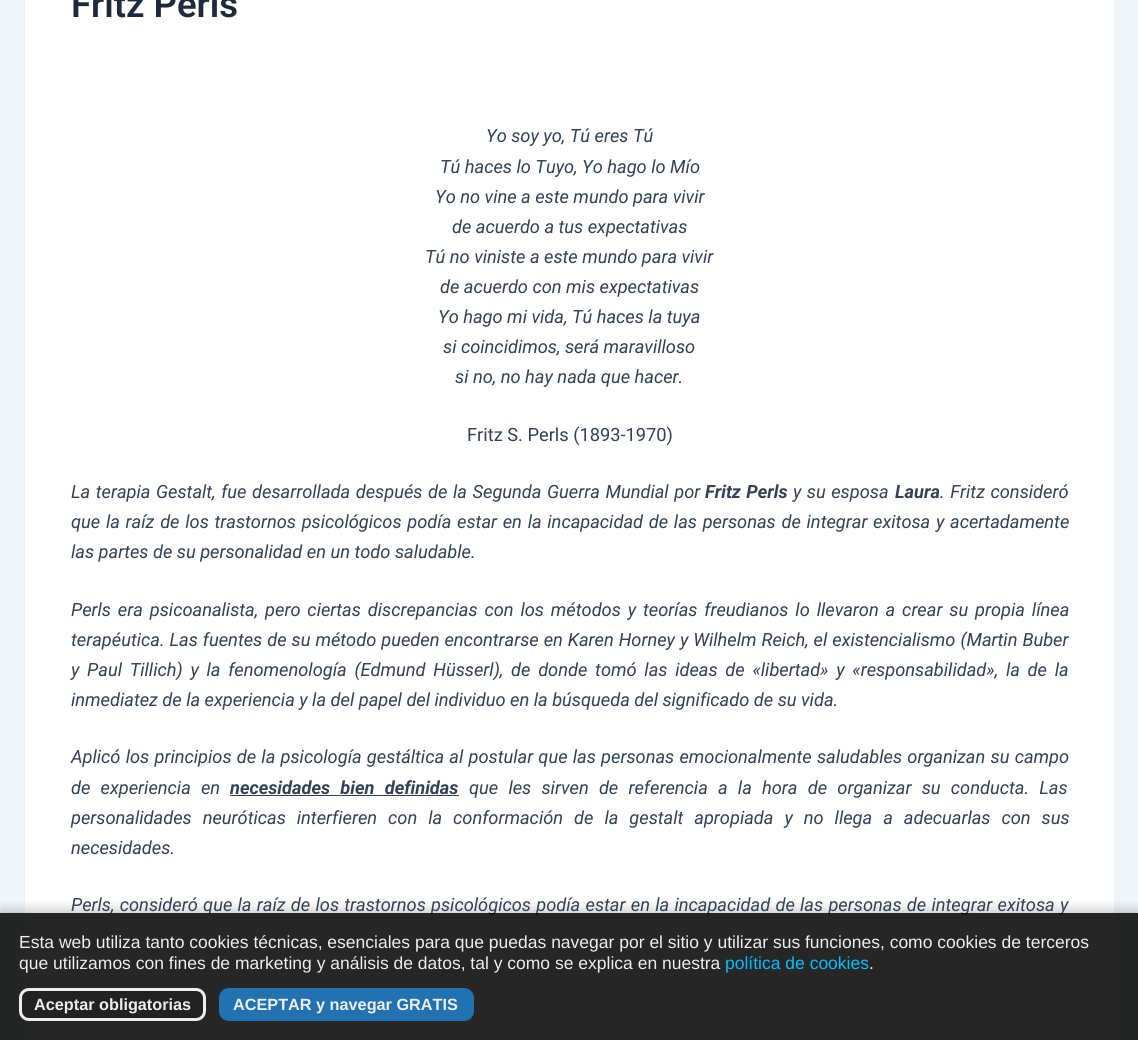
#include <cairo/cairo.h>
#include <math.h>
#include <stddef.h>


static void draw_spaced(cairo_t *cr, double x, double y, const char *s, double letter, double word) {
  cairo_move_to(cr, x, y);
  while (*s) {
    char ch[5] = {0};
    int n = 0;
    do ch[n++] = *s++; while ((*s & 0xC0) == 0x80);
    cairo_show_text(cr, ch);
    cairo_rel_move_to(cr, letter + word * (*ch == ' '), 0);
  }
}

static void rounded_rect(cairo_t *cr, double x, double y, double w, double h, double r) {
  cairo_new_sub_path(cr);
  cairo_arc(cr, x + w - r, y + h - r, r, 0, M_PI / 2);
  cairo_arc(cr, x + r, y + h - r, r, M_PI / 2, M_PI);
  cairo_arc(cr, x + r, y + r, r, M_PI, 1.5 * M_PI);
  cairo_arc(cr, x + w - r, y + r, r, 1.5 * M_PI, 2 * M_PI);
  cairo_close_path(cr);
}

static void draw_shadow(cairo_t *cr, double x, double y, double w, double h, double r, double blur, double alpha) {
  cairo_push_group_with_content(cr, CAIRO_CONTENT_ALPHA);
  cairo_set_operator(cr, CAIRO_OPERATOR_SOURCE);
  for (int i = 15; i >= -15 && fmin(w, h) + blur * i / 3 > 0; i -= 2) {
    double e = blur * i / 6;
    cairo_set_source_rgba(cr, 0, 0, 0, alpha * erfc((i - 1) / 8.5) / 2);
    rounded_rect(cr, x - e, y - e, w + 2 * e, h + 2 * e, fmax(0, fmin(r + e + blur * .6, fmin(w, h) / 2 + e)));
    cairo_fill(cr);
  }
  cairo_pattern_t *soft = cairo_pop_group(cr);
  cairo_mask(cr, soft);
  cairo_pattern_destroy(soft);
}

static void draw(cairo_t *cr) {
  cairo_set_source_rgb(cr, 240 / 255.0, 245 / 255.0, 250 / 255.0);
  cairo_paint(cr);
  cairo_set_source_rgb(cr, 1, 1, 1);
  cairo_rectangle(cr, 25, 0, 1089, 1040);
  cairo_fill(cr);
  cairo_set_source_rgb(cr, 51 / 255.0, 65 / 255.0, 85 / 255.0);
  cairo_rectangle(cr, 230, 795, 229, 1);
  cairo_fill(cr);
  cairo_save(cr);
  cairo_rectangle(cr, 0, 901, 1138, 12);
  cairo_clip(cr);
  cairo_set_source_rgb(cr, 0, 0, 0);
  draw_shadow(cr, 0, 909, 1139, 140, 0, 6, 0.2);
  cairo_restore(cr);
  cairo_select_font_face(cr, "Roboto SemiBold", CAIRO_FONT_SLANT_NORMAL, CAIRO_FONT_WEIGHT_NORMAL);
  cairo_set_font_size(cr, 36.5);
  cairo_set_source_rgb(cr, 30 / 255.0, 41 / 255.0, 59 / 255.0);
  cairo_move_to(cr, 71, 17);
  cairo_show_text(cr, "Fritz Perls");
  cairo_select_font_face(cr, "Roboto", CAIRO_FONT_SLANT_ITALIC, CAIRO_FONT_WEIGHT_NORMAL);
  cairo_set_font_size(cr, 18.25);
  cairo_set_source_rgb(cr, 51 / 255.0, 65 / 255.0, 85 / 255.0);
  cairo_move_to(cr, 486, 142);
  cairo_show_text(cr, "Yo soy yo, Tú eres Tú");
  cairo_move_to(cr, 440, 173);
  cairo_show_text(cr, "Tú haces lo Tuyo, Yo hago lo Mío");
  cairo_move_to(cr, 435, 203);
  cairo_show_text(cr, "Yo no vine a este mundo para vivir");
  cairo_move_to(cr, 452, 233);
  cairo_show_text(cr, "de acuerdo a tus expectativas");
  cairo_move_to(cr, 425, 263);
  cairo_show_text(cr, "Tú no viniste a este mundo para vivir");
  cairo_move_to(cr, 440, 293);
  cairo_show_text(cr, "de acuerdo con mis expectativas");
  cairo_move_to(cr, 438, 323);
  cairo_show_text(cr, "Yo hago mi vida, Tú haces la tuya");
  cairo_move_to(cr, 443, 353);
  cairo_show_text(cr, "si coincidimos, será maravilloso");
  cairo_move_to(cr, 455, 383);
  cairo_show_text(cr, "si no, no hay nada que hacer.");
  cairo_select_font_face(cr, "Roboto", CAIRO_FONT_SLANT_NORMAL, CAIRO_FONT_WEIGHT_NORMAL);
  cairo_move_to(cr, 467, 441);
  cairo_show_text(cr, "Fritz S. Perls (1893-1970)");
  cairo_select_font_face(cr, "Roboto", CAIRO_FONT_SLANT_ITALIC, CAIRO_FONT_WEIGHT_NORMAL);
  draw_spaced(cr, 71, 498, "La terapia Gestalt, fue desarrollada después de la Segunda Guerra Mundial por", 0, 1.1);
  cairo_select_font_face(cr, "Roboto", CAIRO_FONT_SLANT_ITALIC, CAIRO_FONT_WEIGHT_BOLD);
  draw_spaced(cr, 705, 498, "Fritz Perls", 0, 1);
  cairo_select_font_face(cr, "Roboto", CAIRO_FONT_SLANT_ITALIC, CAIRO_FONT_WEIGHT_NORMAL);
  draw_spaced(cr, 793, 498, "y su esposa", 0, 1);
  cairo_select_font_face(cr, "Roboto", CAIRO_FONT_SLANT_ITALIC, CAIRO_FONT_WEIGHT_BOLD);
  cairo_move_to(cr, 895, 498);
  cairo_show_text(cr, "Laura");
  cairo_select_font_face(cr, "Roboto", CAIRO_FONT_SLANT_ITALIC, CAIRO_FONT_WEIGHT_NORMAL);
  draw_spaced(cr, 940, 498, ". Fritz consideró", 0, 1.1);
  draw_spaced(cr, 71, 528, "que la raíz de los trastornos psicológicos podía estar en la incapacidad de las personas de integrar exitosa y acertadamente", 0, 1.25);
  cairo_move_to(cr, 71, 558);
  cairo_show_text(cr, "las partes de su personalidad en un todo saludable.");
  draw_spaced(cr, 71, 616, "Perls era psicoanalista, pero ciertas discrepancias con los métodos y teorías freudianos lo llevaron a crear su propia línea", 0, 2.4);
  draw_spaced(cr, 71, 646, "terapéutica. Las fuentes de su método pueden encontrarse en Karen Horney y Wilhelm Reich, el existencialismo (Martin Buber", 0, 0.5);
  draw_spaced(cr, 71, 676, "y Paul Tillich) y la fenomenología (Edmund Hüsserl), de donde tomó las ideas de «libertad» y «responsabilidad», la de la", 0, 3.25);
  cairo_move_to(cr, 71, 706);
  cairo_show_text(cr, "inmediatez de la experiencia y la del papel del individuo en la búsqueda del significado de su vida.");
  draw_spaced(cr, 71, 763, "Aplicó los principios de la psicología gestáltica al postular que las personas emocionalmente saludables organizan su campo", 0, 0.75);
  draw_spaced(cr, 71, 794, "de experiencia en", 0, 5.75);
  cairo_select_font_face(cr, "Roboto", CAIRO_FONT_SLANT_ITALIC, CAIRO_FONT_WEIGHT_BOLD);
  draw_spaced(cr, 230, 794, "necesidades bien definidas", 0, 5.75);
  cairo_select_font_face(cr, "Roboto", CAIRO_FONT_SLANT_ITALIC, CAIRO_FONT_WEIGHT_NORMAL);
  draw_spaced(cr, 469, 794, "que les sirven de referencia a la hora de organizar su conducta. Las", 0, 5.75);
  draw_spaced(cr, 71, 824, "personalidades neuróticas interfieren con la conformación de la gestalt apropiada y no llega a adecuarlas con sus", 0, 6.5);
  cairo_move_to(cr, 71, 854);
  cairo_show_text(cr, "necesidades.");
  draw_spaced(cr, 71, 911, "Perls, consideró que la raíz de los trastornos psicológicos podía estar en la incapacidad de las personas de integrar exitosa y", 0, 0.8);
  cairo_set_source_rgba(cr, 0, 0, 0, 0.85);
  cairo_rectangle(cr, 0, 913, 1138, 127);
  cairo_fill(cr);
  cairo_select_font_face(cr, "Liberation Sans", CAIRO_FONT_SLANT_NORMAL, CAIRO_FONT_WEIGHT_NORMAL);
  cairo_set_font_size(cr, 17.5);
  cairo_set_source_rgb(cr, 238 / 255.0, 238 / 255.0, 238 / 255.0);
  cairo_move_to(cr, 19, 948);
  cairo_show_text(cr, "Esta web utiliza tanto cookies técnicas, esenciales para que puedas navegar por el sitio y utilizar sus funciones, como cookies de terceros");
  cairo_move_to(cr, 19, 969);
  cairo_show_text(cr, "que utilizamos con fines de marketing y análisis de datos, tal y como se explica en nuestra");
  cairo_set_source_rgb(cr, 0, 191 / 255.0, 1);
  cairo_move_to(cr, 725, 969);
  cairo_show_text(cr, "política de cookies");
  cairo_set_source_rgb(cr, 238 / 255.0, 238 / 255.0, 238 / 255.0);
  cairo_move_to(cr, 869, 969);
  cairo_show_text(cr, ".");
  cairo_set_source_rgb(cr, 34 / 255.0, 34 / 255.0, 34 / 255.0);
  rounded_rect(cr, 20.5, 989.5, 184, 30, 8.5);
  cairo_fill_preserve(cr);
  cairo_set_source_rgb(cr, 238 / 255.0, 238 / 255.0, 238 / 255.0);
  cairo_set_line_width(cr, 3);
  cairo_stroke(cr);
  cairo_select_font_face(cr, "Liberation Sans", CAIRO_FONT_SLANT_NORMAL, CAIRO_FONT_WEIGHT_BOLD);
  cairo_set_font_size(cr, 16.25);
  cairo_move_to(cr, 34, 1010);
  cairo_show_text(cr, "Aceptar obligatorias");
  cairo_set_source_rgb(cr, 34 / 255.0, 113 / 255.0, 177 / 255.0);
  rounded_rect(cr, 220.5, 989.5, 252, 30, 8.5);
  cairo_fill_preserve(cr);
  cairo_stroke(cr);
  cairo_set_source_rgb(cr, 238 / 255.0, 238 / 255.0, 238 / 255.0);
  cairo_move_to(cr, 233, 1010);
  cairo_show_text(cr, "ACEPTAR y navegar GRATIS");
}

int main(void) {
  cairo_surface_t *surface = cairo_image_surface_create(CAIRO_FORMAT_RGB24, 1138, 1040);
  cairo_t *cr = cairo_create(surface);
  cairo_font_options_t *options = cairo_font_options_create();
  cairo_font_options_set_hint_metrics(options, CAIRO_HINT_METRICS_OFF);
  cairo_font_options_set_hint_style(options, CAIRO_HINT_STYLE_NONE);
  cairo_set_font_options(cr, options);
  cairo_set_miter_limit(cr, 4);
  draw(cr);
  cairo_surface_write_to_png(surface, "out.png");
  cairo_font_options_destroy(options);
  cairo_destroy(cr);
  cairo_surface_destroy(surface);
  return 0;
}
